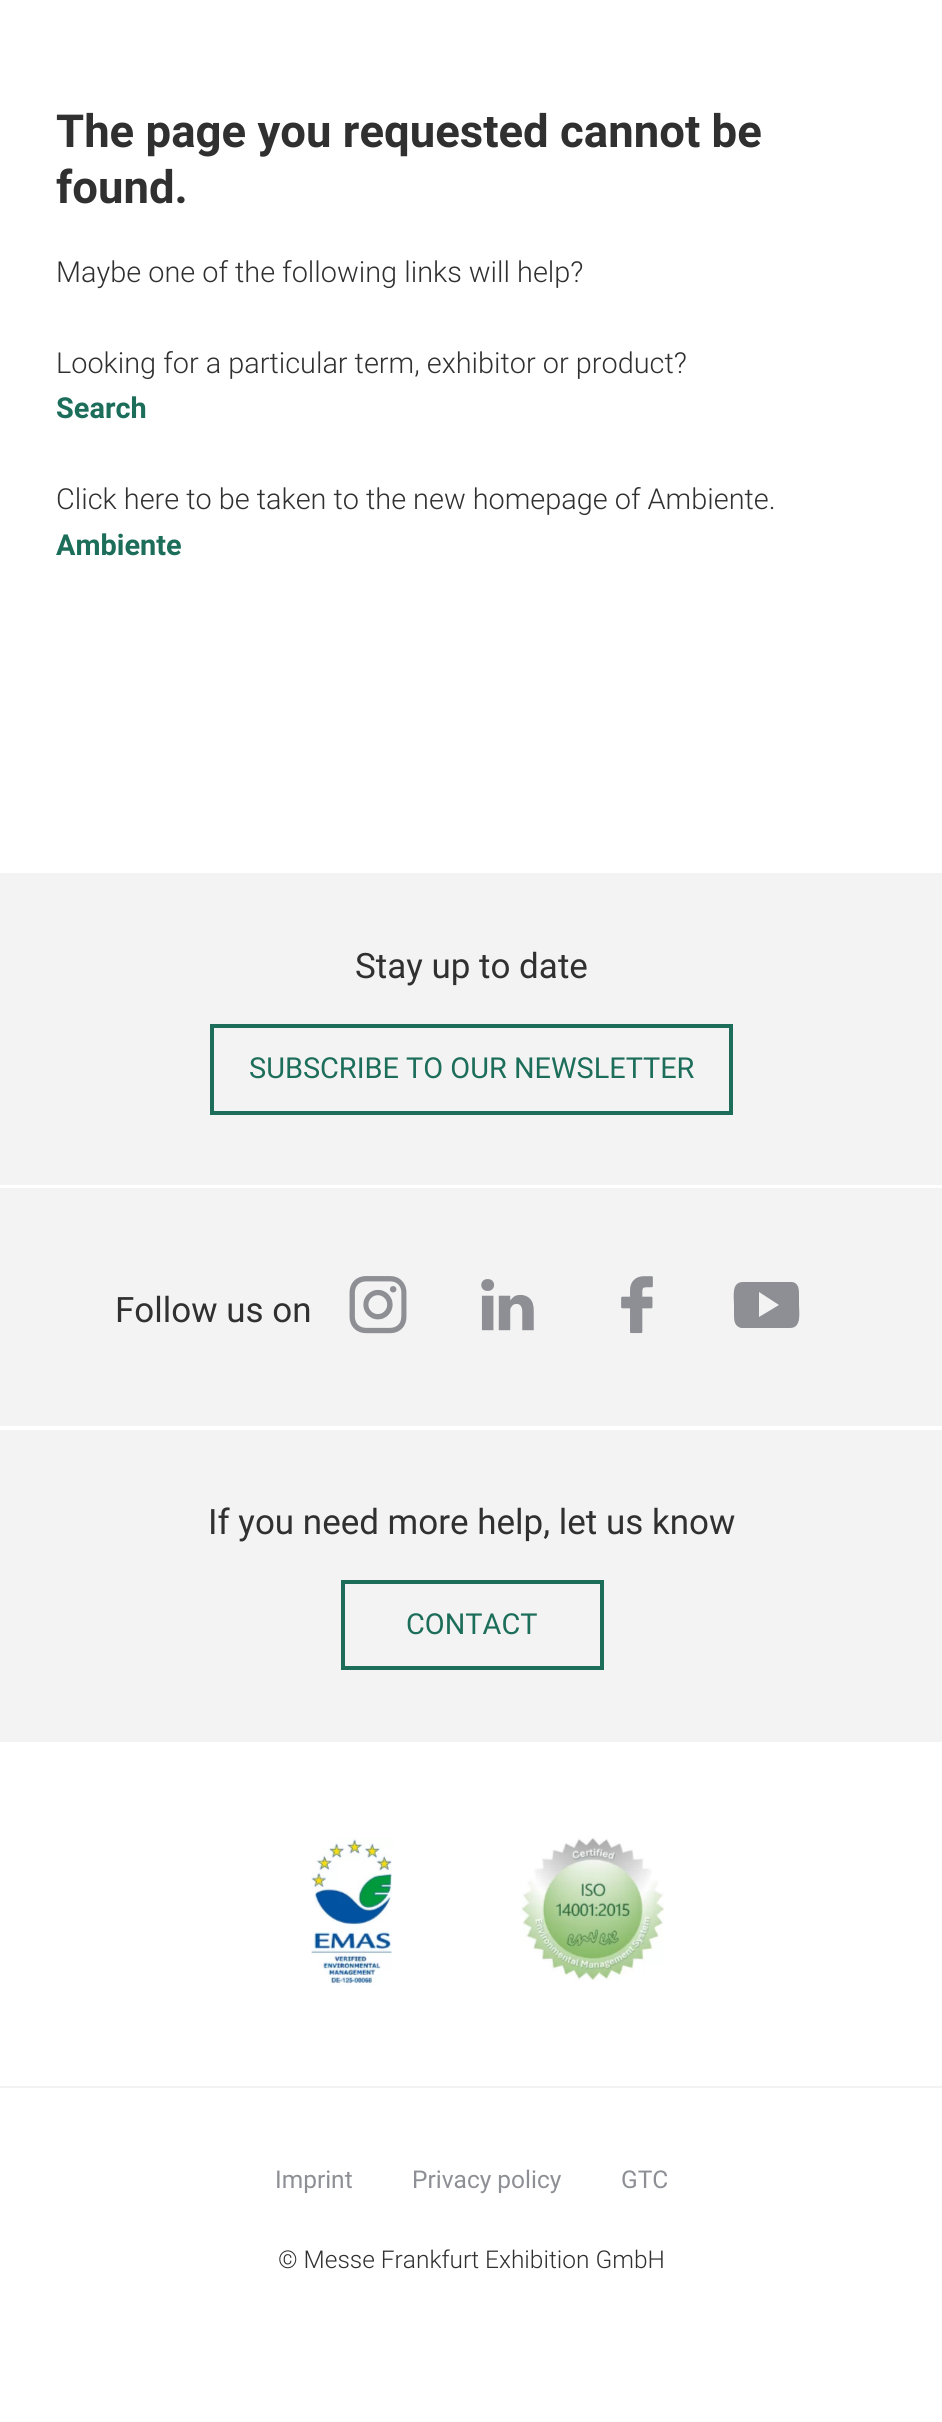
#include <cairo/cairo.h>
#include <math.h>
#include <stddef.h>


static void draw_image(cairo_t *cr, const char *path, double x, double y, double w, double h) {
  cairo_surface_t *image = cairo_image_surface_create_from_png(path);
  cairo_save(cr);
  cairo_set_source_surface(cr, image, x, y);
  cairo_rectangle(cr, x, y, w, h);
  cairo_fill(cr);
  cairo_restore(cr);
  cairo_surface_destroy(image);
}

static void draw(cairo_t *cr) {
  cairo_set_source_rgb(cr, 1, 1, 1);
  cairo_paint(cr);
  cairo_set_source_rgb(cr, 243 / 255.0, 243 / 255.0, 243 / 255.0);
  cairo_rectangle(cr, 0, 873, 942, 312);
  cairo_fill(cr);
  cairo_rectangle(cr, 212, 1026, 519, 87);
  cairo_set_source_rgb(cr, 28 / 255.0, 110 / 255.0, 90 / 255.0);
  cairo_set_line_width(cr, 4);
  cairo_stroke(cr);
  cairo_set_source_rgb(cr, 243 / 255.0, 243 / 255.0, 243 / 255.0);
  cairo_rectangle(cr, 0, 1188, 942, 238);
  cairo_fill(cr);
  draw_image(cr, "images/1.png", 349, 1276, 58, 58);
  draw_image(cr, "images/2.png", 481, 1279, 53, 52);
  draw_image(cr, "images/3.png", 621, 1276, 32, 58);
  cairo_set_source_rgb(cr, 141 / 255.0, 143 / 255.0, 149 / 255.0);
  cairo_new_path(cr);
  cairo_move_to(cr, 743, 1282);
  cairo_line_to(cr, 792, 1282);
  cairo_curve_to(cr, 799, 1283, 799, 1290, 799, 1295);
  cairo_line_to(cr, 799, 1305);
  cairo_curve_to(cr, 799, 1312, 802, 1328, 790, 1328);
  cairo_line_to(cr, 741, 1328);
  cairo_curve_to(cr, 734, 1326, 734, 1320, 734, 1314);
  cairo_line_to(cr, 734, 1305);
  cairo_curve_to(cr, 734, 1297, 731, 1282, 743, 1282);
  cairo_close_path(cr);
  cairo_move_to(cr, 759, 1292);
  cairo_line_to(cr, 759, 1317);
  cairo_line_to(cr, 779, 1305);
  cairo_close_path(cr);
  cairo_fill(cr);
  cairo_set_source_rgb(cr, 243 / 255.0, 243 / 255.0, 243 / 255.0);
  cairo_rectangle(cr, 0, 1430, 942, 312);
  cairo_fill(cr);
  cairo_rectangle(cr, 343, 1582, 259, 86);
  cairo_set_source_rgb(cr, 28 / 255.0, 110 / 255.0, 90 / 255.0);
  cairo_stroke(cr);
  draw_image(cr, "images/4.png", 311, 1838, 82, 147);
  draw_image(cr, "images/5.png", 520, 1837, 144, 144);
  cairo_set_source_rgb(cr, 243 / 255.0, 243 / 255.0, 243 / 255.0);
  cairo_rectangle(cr, 0, 2086, 942, 2);
  cairo_fill(cr);
  cairo_select_font_face(cr, "Roboto", CAIRO_FONT_SLANT_NORMAL, CAIRO_FONT_WEIGHT_BOLD);
  cairo_set_font_size(cr, 45.5);
  cairo_set_source_rgb(cr, 48 / 255.0, 48 / 255.0, 48 / 255.0);
  cairo_move_to(cr, 56, 147);
  cairo_show_text(cr, "The page you requested cannot be");
  cairo_move_to(cr, 56, 203);
  cairo_show_text(cr, "found.");
  cairo_select_font_face(cr, "Roboto Light", CAIRO_FONT_SLANT_NORMAL, CAIRO_FONT_WEIGHT_NORMAL);
  cairo_set_font_size(cr, 28.9);
  cairo_move_to(cr, 56, 282);
  cairo_show_text(cr, "Maybe one of the following links will help?");
  cairo_move_to(cr, 56, 373);
  cairo_show_text(cr, "Looking for a particular term, exhibitor or product?");
  cairo_select_font_face(cr, "Roboto", CAIRO_FONT_SLANT_NORMAL, CAIRO_FONT_WEIGHT_BOLD);
  cairo_set_source_rgb(cr, 28 / 255.0, 110 / 255.0, 90 / 255.0);
  cairo_move_to(cr, 56, 418);
  cairo_show_text(cr, "Search");
  cairo_select_font_face(cr, "Roboto Light", CAIRO_FONT_SLANT_NORMAL, CAIRO_FONT_WEIGHT_NORMAL);
  cairo_set_source_rgb(cr, 48 / 255.0, 48 / 255.0, 48 / 255.0);
  cairo_move_to(cr, 56, 509);
  cairo_show_text(cr, "Click here to be taken to the new homepage of Ambiente.");
  cairo_select_font_face(cr, "Roboto", CAIRO_FONT_SLANT_NORMAL, CAIRO_FONT_WEIGHT_BOLD);
  cairo_set_source_rgb(cr, 28 / 255.0, 110 / 255.0, 90 / 255.0);
  cairo_move_to(cr, 56, 555);
  cairo_show_text(cr, "Ambiente");
  cairo_select_font_face(cr, "Roboto", CAIRO_FONT_SLANT_NORMAL, CAIRO_FONT_WEIGHT_NORMAL);
  cairo_set_font_size(cr, 35);
  cairo_set_source_rgb(cr, 48 / 255.0, 48 / 255.0, 48 / 255.0);
  cairo_move_to(cr, 355, 978);
  cairo_show_text(cr, "Stay up to date");
  cairo_set_font_size(cr, 28.9);
  cairo_set_source_rgb(cr, 28 / 255.0, 110 / 255.0, 90 / 255.0);
  cairo_move_to(cr, 249, 1078);
  cairo_show_text(cr, "SUBSCRIBE TO OUR NEWSLETTER");
  cairo_set_font_size(cr, 35);
  cairo_set_source_rgb(cr, 48 / 255.0, 48 / 255.0, 48 / 255.0);
  cairo_move_to(cr, 115, 1322);
  cairo_show_text(cr, "Follow us on");
  cairo_move_to(cr, 208, 1534);
  cairo_show_text(cr, "If you need more help, let us know");
  cairo_set_font_size(cr, 28.9);
  cairo_set_source_rgb(cr, 28 / 255.0, 110 / 255.0, 90 / 255.0);
  cairo_move_to(cr, 406, 1634);
  cairo_show_text(cr, "CONTACT");
  cairo_set_font_size(cr, 24.5);
  cairo_set_source_rgb(cr, 141 / 255.0, 143 / 255.0, 149 / 255.0);
  cairo_move_to(cr, 275, 2188);
  cairo_show_text(cr, "Imprint");
  cairo_move_to(cr, 412, 2188);
  cairo_show_text(cr, "Privacy policy");
  cairo_move_to(cr, 621, 2188);
  cairo_show_text(cr, "GTC");
  cairo_select_font_face(cr, "Roboto Light", CAIRO_FONT_SLANT_NORMAL, CAIRO_FONT_WEIGHT_NORMAL);
  cairo_set_source_rgb(cr, 48 / 255.0, 48 / 255.0, 48 / 255.0);
  cairo_move_to(cr, 278, 2268);
  cairo_show_text(cr, "© Messe Frankfurt Exhibition GmbH");
}

int main(void) {
  cairo_surface_t *surface = cairo_image_surface_create(CAIRO_FORMAT_RGB24, 942, 2422);
  cairo_t *cr = cairo_create(surface);
  cairo_font_options_t *options = cairo_font_options_create();
  cairo_font_options_set_hint_metrics(options, CAIRO_HINT_METRICS_OFF);
  cairo_font_options_set_hint_style(options, CAIRO_HINT_STYLE_NONE);
  cairo_set_font_options(cr, options);
  cairo_set_miter_limit(cr, 4);
  draw(cr);
  cairo_surface_write_to_png(surface, "out.png");
  cairo_font_options_destroy(options);
  cairo_destroy(cr);
  cairo_surface_destroy(surface);
  return 0;
}
